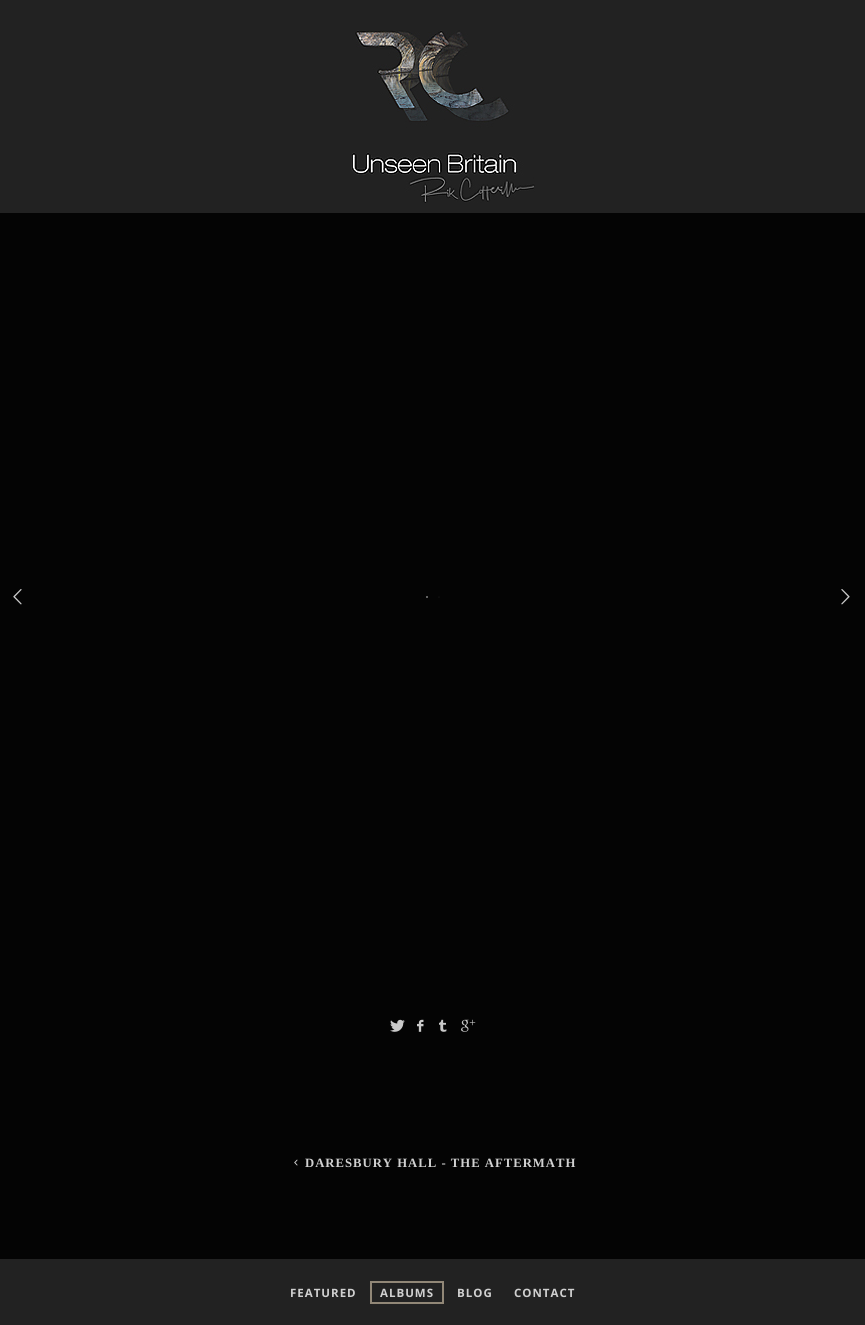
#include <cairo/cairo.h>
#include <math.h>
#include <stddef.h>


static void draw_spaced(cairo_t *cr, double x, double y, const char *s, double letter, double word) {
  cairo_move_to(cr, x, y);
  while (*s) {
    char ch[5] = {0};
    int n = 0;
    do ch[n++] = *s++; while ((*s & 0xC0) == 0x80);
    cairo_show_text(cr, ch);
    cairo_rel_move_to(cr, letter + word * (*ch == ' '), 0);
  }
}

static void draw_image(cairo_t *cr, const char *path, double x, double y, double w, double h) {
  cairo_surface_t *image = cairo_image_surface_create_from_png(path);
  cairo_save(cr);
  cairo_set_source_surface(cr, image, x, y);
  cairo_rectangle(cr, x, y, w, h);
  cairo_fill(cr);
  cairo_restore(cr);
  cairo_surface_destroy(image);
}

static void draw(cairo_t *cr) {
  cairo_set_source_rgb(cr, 4 / 255.0, 4 / 255.0, 4 / 255.0);
  cairo_paint(cr);
  cairo_set_source_rgb(cr, 34 / 255.0, 34 / 255.0, 34 / 255.0);
  cairo_rectangle(cr, 0, 0, 865, 213);
  cairo_fill(cr);
  draw_image(cr, "images/1.png", 351, 30, 184, 173);
  draw_image(cr, "images/2.png", 13, 589, 9, 16);
  draw_image(cr, "images/3.png", 426, 596, 14, 2);
  draw_image(cr, "images/4.png", 841, 589, 9, 16);
  draw_image(cr, "images/5.png", 390, 1019, 15, 13);
  draw_image(cr, "images/6.png", 417, 1019, 7, 13);
  draw_image(cr, "images/7.png", 439, 1019, 8, 13);
  draw_image(cr, "images/8.png", 461, 1019, 15, 13);
  draw_image(cr, "images/9.png", 294, 1159, 4, 7);
  cairo_rectangle(cr, 0, 1259, 865, 66);
  cairo_fill(cr);
  cairo_rectangle(cr, 371, 1282, 72, 21);
  cairo_set_source_rgb(cr, 145 / 255.0, 135 / 255.0, 119 / 255.0);
  cairo_stroke(cr);
  cairo_select_font_face(cr, "Liberation Serif", CAIRO_FONT_SLANT_NORMAL, CAIRO_FONT_WEIGHT_BOLD);
  cairo_set_font_size(cr, 12.7);
  cairo_set_source_rgb(cr, 208 / 255.0, 208 / 255.0, 208 / 255.0);
  draw_spaced(cr, 305, 1167, "DARESBURY HALL - THE AFTERMATH", 1, 0);
  cairo_select_font_face(cr, "Open Sans", CAIRO_FONT_SLANT_NORMAL, CAIRO_FONT_WEIGHT_BOLD);
  cairo_set_font_size(cr, 11.5);
  draw_spaced(cr, 290, 1297, "FEATURED", 1, 0);
  draw_spaced(cr, 380, 1297, "ALBUMS", 1, 0);
  draw_spaced(cr, 457, 1297, "BLOG", 1, 0);
  draw_spaced(cr, 514, 1297, "CONTACT", 1, 0);
}

int main(void) {
  cairo_surface_t *surface = cairo_image_surface_create(CAIRO_FORMAT_RGB24, 865, 1325);
  cairo_t *cr = cairo_create(surface);
  cairo_font_options_t *options = cairo_font_options_create();
  cairo_font_options_set_hint_metrics(options, CAIRO_HINT_METRICS_OFF);
  cairo_font_options_set_hint_style(options, CAIRO_HINT_STYLE_NONE);
  cairo_set_font_options(cr, options);
  cairo_set_miter_limit(cr, 4);
  draw(cr);
  cairo_surface_write_to_png(surface, "out.png");
  cairo_font_options_destroy(options);
  cairo_destroy(cr);
  cairo_surface_destroy(surface);
  return 0;
}
